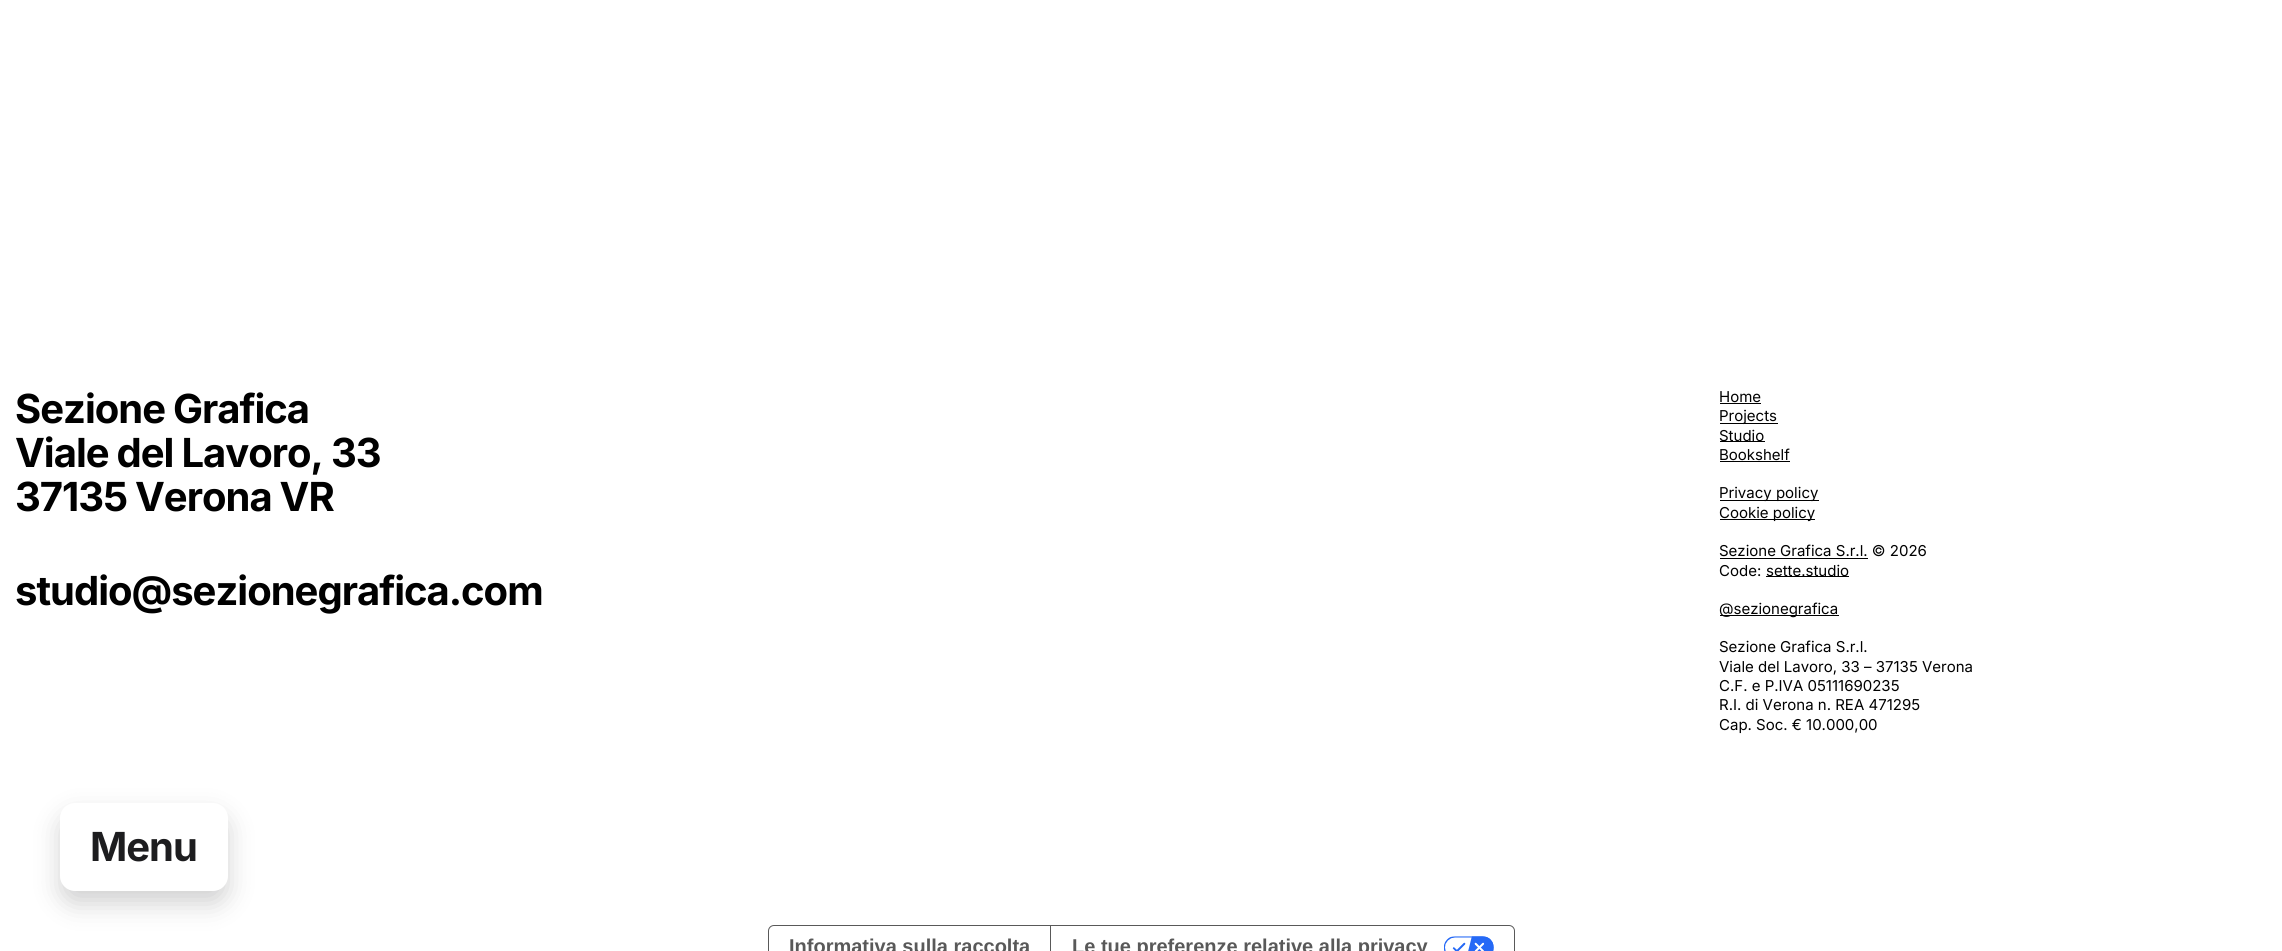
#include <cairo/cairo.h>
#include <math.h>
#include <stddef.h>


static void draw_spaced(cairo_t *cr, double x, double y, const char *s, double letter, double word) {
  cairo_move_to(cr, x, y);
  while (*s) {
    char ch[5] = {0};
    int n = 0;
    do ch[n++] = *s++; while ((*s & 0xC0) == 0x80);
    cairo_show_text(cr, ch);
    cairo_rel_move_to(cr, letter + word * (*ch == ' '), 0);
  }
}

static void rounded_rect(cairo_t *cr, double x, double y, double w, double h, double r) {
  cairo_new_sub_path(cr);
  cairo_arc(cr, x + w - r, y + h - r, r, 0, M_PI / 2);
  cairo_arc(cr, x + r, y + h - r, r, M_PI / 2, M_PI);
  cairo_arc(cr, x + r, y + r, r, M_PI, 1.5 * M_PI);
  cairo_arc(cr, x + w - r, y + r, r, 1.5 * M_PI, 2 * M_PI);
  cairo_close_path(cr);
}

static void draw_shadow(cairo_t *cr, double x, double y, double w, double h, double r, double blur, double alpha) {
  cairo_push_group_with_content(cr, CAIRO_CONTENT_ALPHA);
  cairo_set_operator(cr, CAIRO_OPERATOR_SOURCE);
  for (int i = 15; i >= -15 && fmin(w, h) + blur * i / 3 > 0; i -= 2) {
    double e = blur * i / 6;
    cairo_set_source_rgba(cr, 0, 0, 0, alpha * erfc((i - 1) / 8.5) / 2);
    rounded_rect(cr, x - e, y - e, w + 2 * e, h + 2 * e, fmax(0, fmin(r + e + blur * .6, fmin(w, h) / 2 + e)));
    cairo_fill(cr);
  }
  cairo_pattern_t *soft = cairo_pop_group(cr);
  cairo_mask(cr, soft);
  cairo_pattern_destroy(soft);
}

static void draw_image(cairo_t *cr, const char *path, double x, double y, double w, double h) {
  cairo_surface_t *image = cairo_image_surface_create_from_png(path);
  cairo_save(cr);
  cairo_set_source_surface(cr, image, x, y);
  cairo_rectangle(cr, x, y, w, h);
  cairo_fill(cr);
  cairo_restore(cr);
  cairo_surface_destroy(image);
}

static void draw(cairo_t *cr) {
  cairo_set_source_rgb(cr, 1, 1, 1);
  cairo_paint(cr);
  cairo_set_source_rgb(cr, 0, 0, 0);
  cairo_rectangle(cr, 1720, 403, 41, 1);
  cairo_fill(cr);
  cairo_rectangle(cr, 1720, 423, 58, 1);
  cairo_fill(cr);
  cairo_rectangle(cr, 1720, 441, 45, 1);
  cairo_fill(cr);
  cairo_rectangle(cr, 1720, 461, 70, 1);
  cairo_fill(cr);
  cairo_rectangle(cr, 1720, 500, 99, 1);
  cairo_fill(cr);
  cairo_rectangle(cr, 1720, 519, 95, 1);
  cairo_fill(cr);
  cairo_rectangle(cr, 1720, 558, 148, 1);
  cairo_fill(cr);
  cairo_rectangle(cr, 1766, 576, 83, 1);
  cairo_fill(cr);
  cairo_rectangle(cr, 1720, 615, 119, 1);
  cairo_fill(cr);
  cairo_set_source_rgb(cr, 29 / 255.0, 29 / 255.0, 31 / 255.0);
  draw_shadow(cr, 60, 815, 168, 89, 15, 12.5, 0.2);
  cairo_set_source_rgb(cr, 1, 1, 1);
  rounded_rect(cr, 60, 803, 168, 88, 15);
  cairo_fill(cr);
  rounded_rect(cr, 768.5, 925.5, 746, 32, 5.5);
  cairo_set_source_rgb(cr, 89 / 255.0, 89 / 255.0, 89 / 255.0);
  cairo_set_line_width(cr, 1);
  cairo_stroke(cr);
  cairo_rectangle(cr, 1050, 926, 1, 25);
  cairo_fill(cr);
  draw_image(cr, "images/1.png", 1444, 936, 50, 15);
  cairo_select_font_face(cr, "Inter", CAIRO_FONT_SLANT_NORMAL, CAIRO_FONT_WEIGHT_BOLD);
  cairo_set_font_size(cr, 40);
  cairo_set_source_rgb(cr, 0, 0, 0);
  draw_spaced(cr, 15, 423, "Sezione Grafica", -1, -0.5);
  draw_spaced(cr, 15, 467, "Viale del Lavoro, 33", -1, -0.5);
  draw_spaced(cr, 15, 511, "37135 Verona VR", -1, -0.5);
  draw_spaced(cr, 15, 605, "studio@sezionegrafica.com", -1, 0);
  cairo_select_font_face(cr, "Inter", CAIRO_FONT_SLANT_NORMAL, CAIRO_FONT_WEIGHT_NORMAL);
  cairo_set_font_size(cr, 15);
  cairo_move_to(cr, 1719, 402);
  cairo_show_text(cr, "Home");
  cairo_move_to(cr, 1719, 421);
  cairo_show_text(cr, "Projects");
  cairo_move_to(cr, 1719, 441);
  cairo_show_text(cr, "Studio");
  cairo_move_to(cr, 1719, 460);
  cairo_show_text(cr, "Bookshelf");
  cairo_move_to(cr, 1719, 498);
  cairo_show_text(cr, "Privacy policy");
  cairo_move_to(cr, 1719, 518);
  cairo_show_text(cr, "Cookie policy");
  cairo_move_to(cr, 1719, 556);
  cairo_show_text(cr, "Sezione Grafica S.r.l. © 2026");
  cairo_move_to(cr, 1719, 576);
  cairo_show_text(cr, "Code:");
  cairo_move_to(cr, 1766, 576);
  cairo_show_text(cr, "sette.studio");
  cairo_move_to(cr, 1719, 614);
  cairo_show_text(cr, "@sezionegrafica");
  cairo_move_to(cr, 1719, 652);
  cairo_show_text(cr, "Sezione Grafica S.r.l.");
  cairo_move_to(cr, 1719, 672);
  cairo_show_text(cr, "Viale del Lavoro, 33 – 37135 Verona");
  cairo_move_to(cr, 1719, 691);
  cairo_show_text(cr, "C.F. e P.IVA 05111690235");
  cairo_move_to(cr, 1719, 710);
  cairo_show_text(cr, "R.I. di Verona n. REA 471295");
  cairo_move_to(cr, 1719, 730);
  cairo_show_text(cr, "Cap. Soc. € 10.000,00");
  cairo_select_font_face(cr, "Inter", CAIRO_FONT_SLANT_NORMAL, CAIRO_FONT_WEIGHT_BOLD);
  cairo_set_font_size(cr, 40);
  cairo_set_source_rgb(cr, 29 / 255.0, 29 / 255.0, 31 / 255.0);
  draw_spaced(cr, 90, 861, "Menu", -1, 0);
  cairo_select_font_face(cr, "Liberation Sans", CAIRO_FONT_SLANT_NORMAL, CAIRO_FONT_WEIGHT_BOLD);
  cairo_set_font_size(cr, 20);
  cairo_set_source_rgb(cr, 89 / 255.0, 89 / 255.0, 89 / 255.0);
  cairo_move_to(cr, 789, 953);
  cairo_show_text(cr, "Informativa sulla raccolta");
  cairo_move_to(cr, 1072, 953);
  cairo_show_text(cr, "Le tue preferenze relative alla privacy");
}

int main(void) {
  cairo_surface_t *surface = cairo_image_surface_create(CAIRO_FORMAT_RGB24, 2282, 951);
  cairo_t *cr = cairo_create(surface);
  cairo_font_options_t *options = cairo_font_options_create();
  cairo_font_options_set_hint_metrics(options, CAIRO_HINT_METRICS_OFF);
  cairo_font_options_set_hint_style(options, CAIRO_HINT_STYLE_NONE);
  cairo_set_font_options(cr, options);
  cairo_set_miter_limit(cr, 4);
  draw(cr);
  cairo_surface_write_to_png(surface, "out.png");
  cairo_font_options_destroy(options);
  cairo_destroy(cr);
  cairo_surface_destroy(surface);
  return 0;
}
